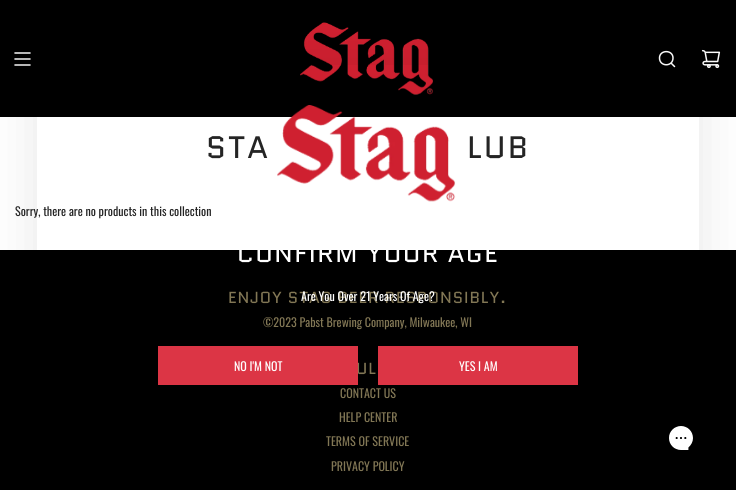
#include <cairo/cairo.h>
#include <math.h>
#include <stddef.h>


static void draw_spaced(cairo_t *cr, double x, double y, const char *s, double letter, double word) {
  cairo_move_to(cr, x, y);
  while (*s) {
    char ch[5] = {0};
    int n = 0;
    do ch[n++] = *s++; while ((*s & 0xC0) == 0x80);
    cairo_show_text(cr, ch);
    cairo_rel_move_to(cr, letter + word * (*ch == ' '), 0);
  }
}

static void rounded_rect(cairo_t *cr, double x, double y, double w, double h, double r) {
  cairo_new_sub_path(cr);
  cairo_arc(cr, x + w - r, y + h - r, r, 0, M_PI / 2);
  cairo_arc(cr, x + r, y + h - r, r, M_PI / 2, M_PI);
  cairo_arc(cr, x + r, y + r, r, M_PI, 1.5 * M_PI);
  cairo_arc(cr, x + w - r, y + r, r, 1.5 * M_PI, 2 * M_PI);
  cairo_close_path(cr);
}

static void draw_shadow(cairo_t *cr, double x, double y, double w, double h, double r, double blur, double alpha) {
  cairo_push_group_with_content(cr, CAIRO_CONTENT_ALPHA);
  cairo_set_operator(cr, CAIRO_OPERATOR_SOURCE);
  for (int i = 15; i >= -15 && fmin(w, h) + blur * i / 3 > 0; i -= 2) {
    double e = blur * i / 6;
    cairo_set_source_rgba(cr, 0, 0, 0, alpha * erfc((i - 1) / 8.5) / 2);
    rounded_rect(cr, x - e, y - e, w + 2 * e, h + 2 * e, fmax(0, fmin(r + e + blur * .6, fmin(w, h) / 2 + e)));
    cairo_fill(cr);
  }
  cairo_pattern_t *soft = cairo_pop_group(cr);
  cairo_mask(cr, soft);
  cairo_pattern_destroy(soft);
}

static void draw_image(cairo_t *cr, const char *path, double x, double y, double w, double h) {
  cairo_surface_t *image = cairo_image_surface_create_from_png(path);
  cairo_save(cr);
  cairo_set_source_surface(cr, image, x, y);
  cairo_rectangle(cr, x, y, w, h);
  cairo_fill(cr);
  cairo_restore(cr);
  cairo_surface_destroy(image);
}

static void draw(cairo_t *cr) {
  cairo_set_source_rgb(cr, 1, 1, 1);
  cairo_paint(cr);
  cairo_set_source_rgb(cr, 0, 0, 0);
  cairo_rectangle(cr, 0, 0, 736, 117);
  cairo_fill(cr);
  cairo_new_path(cr);
  cairo_move_to(cr, 15, 53);
  cairo_line_to(cr, 30, 53);
  cairo_move_to(cr, 15, 59);
  cairo_line_to(cr, 30, 59);
  cairo_move_to(cr, 15, 65);
  cairo_line_to(cr, 30, 65);
  cairo_set_source_rgb(cr, 1, 1, 1);
  cairo_set_line_width(cr, 1.5);
  cairo_set_line_cap(cr, CAIRO_LINE_CAP_ROUND);
  cairo_set_line_join(cr, CAIRO_LINE_JOIN_ROUND);
  cairo_stroke(cr);
  draw_image(cr, "images/1.png", 300, 22, 133, 73);
  cairo_new_path(cr);
  cairo_move_to(cr, 671, 63);
  cairo_line_to(cr, 674.5, 66.5);
  cairo_move_to(cr, 659.5, 58);
  cairo_curve_to(cr, 659.5, 67, 673, 67, 673, 58);
  cairo_curve_to(cr, 673, 49.5, 659.5, 49.5, 659.5, 58);
  cairo_close_path(cr);
  cairo_stroke(cr);
  draw_image(cr, "images/2.png", 701, 49, 20, 20);
  cairo_set_source_rgb(cr, 0, 0, 0);
  cairo_rectangle(cr, 0, 250, 736, 240);
  cairo_fill(cr);
  cairo_save(cr);
  cairo_set_fill_rule(cr, CAIRO_FILL_RULE_EVEN_ODD);
  cairo_new_path(cr);
  cairo_move_to(cr, 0, 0);
  cairo_line_to(cr, 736, 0);
  cairo_line_to(cr, 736, 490);
  cairo_line_to(cr, 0, 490);
  cairo_close_path(cr);
  cairo_move_to(cr, 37, 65);
  cairo_line_to(cr, 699, 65);
  cairo_line_to(cr, 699, 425);
  cairo_line_to(cr, 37, 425);
  cairo_close_path(cr);
  cairo_clip(cr);
  cairo_set_source_rgb(cr, 0, 0, 0);
  draw_shadow(cr, 37, 70, 662, 360, 0, 25, 0.1);
  cairo_restore(cr);
  draw_image(cr, "images/3.png", 277, 105, 179, 97);
  cairo_set_source_rgb(cr, 220 / 255.0, 53 / 255.0, 69 / 255.0);
  cairo_rectangle(cr, 378, 346, 200, 39);
  cairo_fill(cr);
  draw_image(cr, "images/4.png", 669, 426, 24, 24);
  cairo_select_font_face(cr, "Quantico", CAIRO_FONT_SLANT_NORMAL, CAIRO_FONT_WEIGHT_NORMAL);
  cairo_set_font_size(cr, 31);
  cairo_set_source_rgb(cr, 36 / 255.0, 36 / 255.0, 36 / 255.0);
  draw_spaced(cr, 206, 158, "STA", 2, 0);
  draw_spaced(cr, 467, 158, "LUB", 2, 0);
  cairo_select_font_face(cr, "Oswald", CAIRO_FONT_SLANT_NORMAL, CAIRO_FONT_WEIGHT_NORMAL);
  cairo_set_font_size(cr, 12);
  cairo_move_to(cr, 15, 216);
  cairo_show_text(cr, "Sorry, there are no products in this collection");
  cairo_select_font_face(cr, "Quantico", CAIRO_FONT_SLANT_NORMAL, CAIRO_FONT_WEIGHT_NORMAL);
  cairo_set_font_size(cr, 25);
  cairo_set_source_rgb(cr, 1, 1, 1);
  draw_spaced(cr, 237, 262, "CONFIRM YOUR AGE", 1.5, 0);
  cairo_select_font_face(cr, "Oswald", CAIRO_FONT_SLANT_NORMAL, CAIRO_FONT_WEIGHT_NORMAL);
  cairo_set_font_size(cr, 12);
  cairo_move_to(cr, 459, 371);
  cairo_show_text(cr, "YES I AM");
  cairo_select_font_face(cr, "Quantico", CAIRO_FONT_SLANT_NORMAL, CAIRO_FONT_WEIGHT_NORMAL);
  cairo_set_font_size(cr, 16);
  cairo_set_source_rgb(cr, 130 / 255.0, 119 / 255.0, 85 / 255.0);
  draw_spaced(cr, 228, 303, "ENJOY STAG BEER RESPONSIBLY.", 0.95, 0);
  cairo_select_font_face(cr, "Oswald", CAIRO_FONT_SLANT_NORMAL, CAIRO_FONT_WEIGHT_NORMAL);
  cairo_set_font_size(cr, 12);
  cairo_set_source_rgb(cr, 1, 1, 1);
  cairo_move_to(cr, 301, 301);
  cairo_show_text(cr, "Are You Over 21 Years Of Age?");
  cairo_set_source_rgb(cr, 130 / 255.0, 119 / 255.0, 85 / 255.0);
  cairo_move_to(cr, 263, 327);
  cairo_show_text(cr, "©2023 Pabst Brewing Company, Milwaukee, WI");
  cairo_select_font_face(cr, "Quantico", CAIRO_FONT_SLANT_NORMAL, CAIRO_FONT_WEIGHT_NORMAL);
  cairo_set_font_size(cr, 16);
  draw_spaced(cr, 356, 374, "UL", 0.95, 0);
  cairo_set_source_rgb(cr, 220 / 255.0, 53 / 255.0, 69 / 255.0);
  cairo_rectangle(cr, 158, 346, 200, 39);
  cairo_fill(cr);
  cairo_select_font_face(cr, "Oswald", CAIRO_FONT_SLANT_NORMAL, CAIRO_FONT_WEIGHT_NORMAL);
  cairo_set_font_size(cr, 12);
  cairo_set_source_rgb(cr, 1, 1, 1);
  cairo_move_to(cr, 234, 371);
  cairo_show_text(cr, "NO I'M NOT");
  cairo_set_source_rgb(cr, 130 / 255.0, 119 / 255.0, 85 / 255.0);
  cairo_move_to(cr, 340, 398);
  cairo_show_text(cr, "CONTACT US");
  cairo_move_to(cr, 339, 422);
  cairo_show_text(cr, "HELP CENTER");
  cairo_move_to(cr, 326, 446);
  cairo_show_text(cr, "TERMS OF SERVICE");
  cairo_move_to(cr, 331, 471);
  cairo_show_text(cr, "PRIVACY POLICY");
}

int main(void) {
  cairo_surface_t *surface = cairo_image_surface_create(CAIRO_FORMAT_RGB24, 736, 490);
  cairo_t *cr = cairo_create(surface);
  cairo_font_options_t *options = cairo_font_options_create();
  cairo_font_options_set_hint_metrics(options, CAIRO_HINT_METRICS_OFF);
  cairo_font_options_set_hint_style(options, CAIRO_HINT_STYLE_NONE);
  cairo_set_font_options(cr, options);
  cairo_set_miter_limit(cr, 4);
  draw(cr);
  cairo_surface_write_to_png(surface, "out.png");
  cairo_font_options_destroy(options);
  cairo_destroy(cr);
  cairo_surface_destroy(surface);
  return 0;
}
